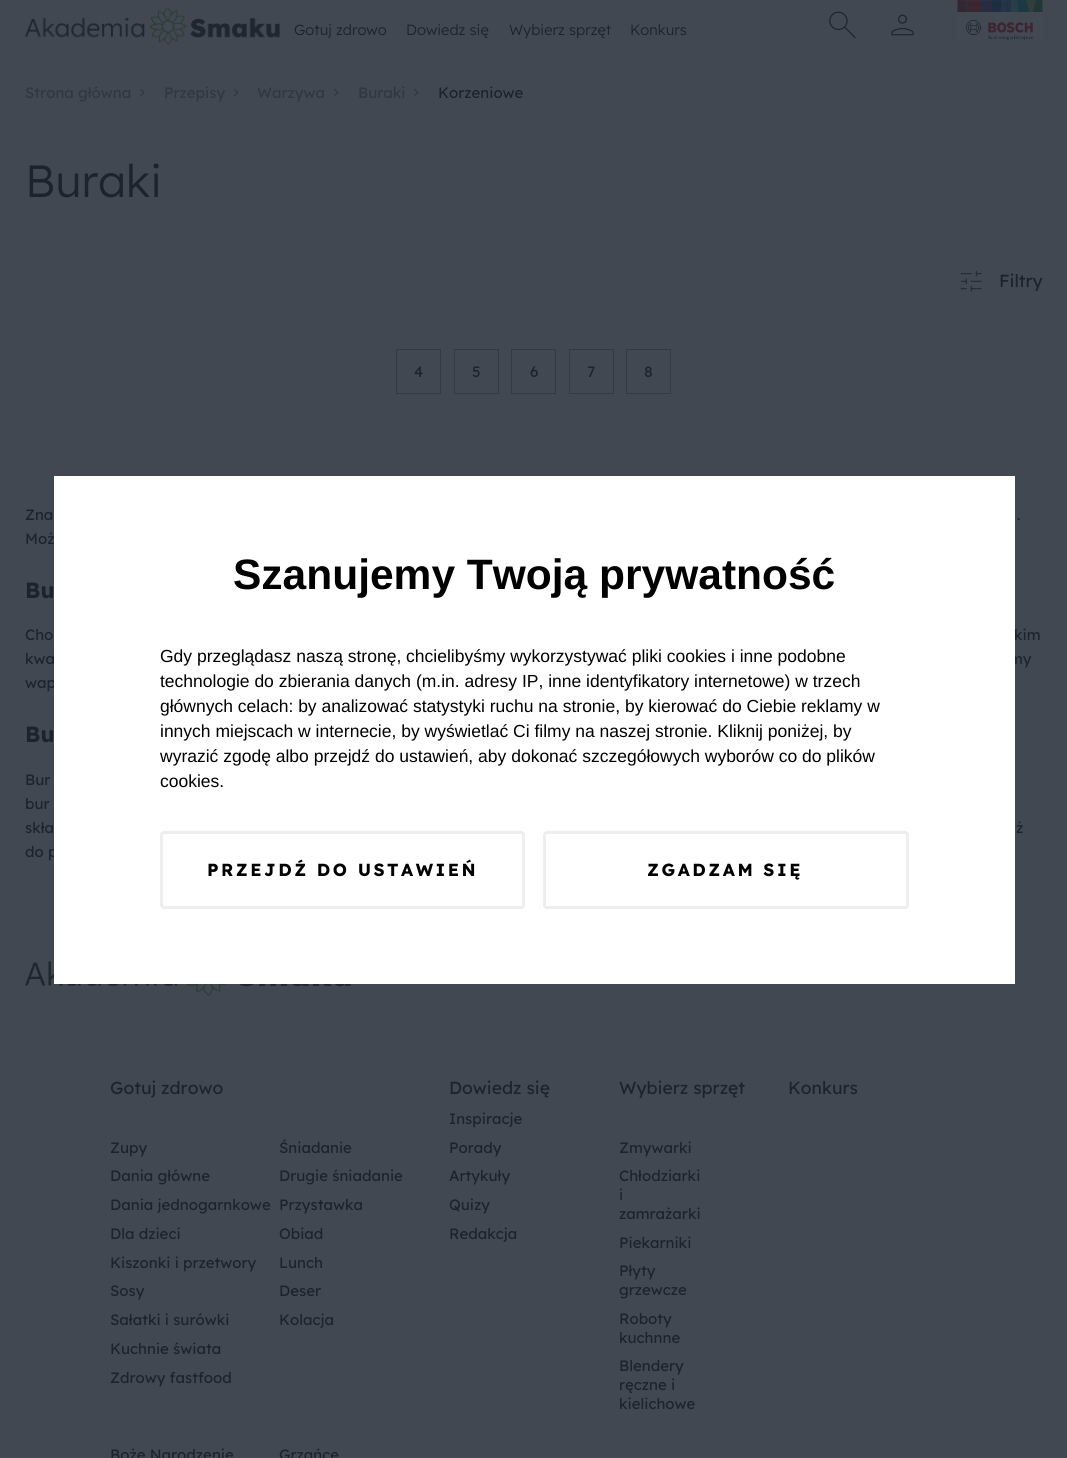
#include <cairo/cairo.h>
#include <math.h>
#include <stddef.h>


static void draw_spaced(cairo_t *cr, double x, double y, const char *s, double letter, double word) {
  cairo_move_to(cr, x, y);
  while (*s) {
    char ch[5] = {0};
    int n = 0;
    do ch[n++] = *s++; while ((*s & 0xC0) == 0x80);
    cairo_show_text(cr, ch);
    cairo_rel_move_to(cr, letter + word * (*ch == ' '), 0);
  }
}

static void rounded_rect(cairo_t *cr, double x, double y, double w, double h, double r) {
  cairo_new_sub_path(cr);
  cairo_arc(cr, x + w - r, y + h - r, r, 0, M_PI / 2);
  cairo_arc(cr, x + r, y + h - r, r, M_PI / 2, M_PI);
  cairo_arc(cr, x + r, y + r, r, M_PI, 1.5 * M_PI);
  cairo_arc(cr, x + w - r, y + r, r, 1.5 * M_PI, 2 * M_PI);
  cairo_close_path(cr);
}

static void draw_image(cairo_t *cr, const char *path, double x, double y, double w, double h) {
  cairo_surface_t *image = cairo_image_surface_create_from_png(path);
  cairo_save(cr);
  cairo_set_source_surface(cr, image, x, y);
  cairo_rectangle(cr, x, y, w, h);
  cairo_fill(cr);
  cairo_restore(cr);
  cairo_surface_destroy(image);
}

static void draw(cairo_t *cr) {
  cairo_set_source_rgb(cr, 65 / 255.0, 72 / 255.0, 81 / 255.0);
  cairo_paint(cr);
  draw_image(cr, "images/1.png", 25, 7, 255, 38);
  draw_image(cr, "images/2.png", 829, 11, 27, 28);
  draw_image(cr, "images/3.png", 891, 14, 23, 22);
  draw_image(cr, "images/4.png", 957, 0, 86, 41);
  draw_image(cr, "images/5.png", 140, 88, 5, 9);
  draw_image(cr, "images/6.png", 234, 88, 4, 9);
  draw_image(cr, "images/6.png", 334, 88, 4, 9);
  draw_image(cr, "images/6.png", 414, 88, 4, 9);
  draw_image(cr, "images/7.png", 960, 270, 22, 22);
  cairo_rectangle(cr, 396.5, 349.5, 44, 44);
  cairo_set_source_rgb(cr, 49 / 255.0, 58 / 255.0, 69 / 255.0);
  cairo_set_line_width(cr, 1);
  cairo_stroke(cr);
  cairo_rectangle(cr, 454.5, 349.5, 44, 44);
  cairo_stroke(cr);
  cairo_rectangle(cr, 511.5, 349.5, 44, 44);
  cairo_stroke(cr);
  cairo_rectangle(cr, 569.5, 349.5, 44, 44);
  cairo_stroke(cr);
  cairo_rectangle(cr, 626.5, 349.5, 44, 44);
  cairo_stroke(cr);
  draw_image(cr, "images/8.png", 25, 961, 326, 35);
  cairo_select_font_face(cr, "Lexend Light", CAIRO_FONT_SLANT_NORMAL, CAIRO_FONT_WEIGHT_NORMAL);
  cairo_set_font_size(cr, 14.75);
  cairo_set_source_rgb(cr, 28 / 255.0, 35 / 255.0, 44 / 255.0);
  cairo_move_to(cr, 294, 35);
  cairo_show_text(cr, "Gotuj zdrowo");
  cairo_move_to(cr, 406, 35);
  cairo_show_text(cr, "Dowiedz się");
  cairo_move_to(cr, 509, 35);
  cairo_show_text(cr, "Wybierz sprzęt");
  cairo_move_to(cr, 630, 35);
  cairo_show_text(cr, "Konkurs");
  cairo_select_font_face(cr, "Lexend", CAIRO_FONT_SLANT_NORMAL, CAIRO_FONT_WEIGHT_NORMAL);
  cairo_set_font_size(cr, 15);
  cairo_set_source_rgb(cr, 48 / 255.0, 55 / 255.0, 64 / 255.0);
  cairo_move_to(cr, 25, 98);
  cairo_show_text(cr, "Strona główna");
  cairo_move_to(cr, 164, 98);
  cairo_show_text(cr, "Przepisy");
  cairo_move_to(cr, 257, 98);
  cairo_show_text(cr, "Warzywa");
  cairo_move_to(cr, 358, 98);
  cairo_show_text(cr, "Buraki");
  cairo_set_source_rgb(cr, 28 / 255.0, 35 / 255.0, 44 / 255.0);
  cairo_move_to(cr, 438, 98);
  cairo_show_text(cr, "Korzeniowe");
  cairo_select_font_face(cr, "Lexend Light", CAIRO_FONT_SLANT_NORMAL, CAIRO_FONT_WEIGHT_NORMAL);
  cairo_set_font_size(cr, 45);
  cairo_move_to(cr, 25, 197);
  cairo_show_text(cr, "Buraki");
  cairo_select_font_face(cr, "Lexend", CAIRO_FONT_SLANT_NORMAL, CAIRO_FONT_WEIGHT_NORMAL);
  cairo_set_font_size(cr, 17.5);
  cairo_move_to(cr, 999, 287);
  cairo_show_text(cr, "Filtry");
  cairo_set_font_size(cr, 15);
  cairo_move_to(cr, 414, 377);
  cairo_show_text(cr, "4");
  cairo_move_to(cr, 472, 377);
  cairo_show_text(cr, "5");
  cairo_move_to(cr, 530, 377);
  cairo_show_text(cr, "6");
  cairo_move_to(cr, 587, 377);
  cairo_show_text(cr, "7");
  cairo_move_to(cr, 644, 377);
  cairo_show_text(cr, "8");
  cairo_move_to(cr, 25, 520);
  cairo_show_text(cr, "Zna");
  cairo_move_to(cr, 1017, 520);
  cairo_show_text(cr, ".");
  cairo_move_to(cr, 25, 544);
  cairo_show_text(cr, "Moż");
  cairo_select_font_face(cr, "Lexend", CAIRO_FONT_SLANT_NORMAL, CAIRO_FONT_WEIGHT_BOLD);
  cairo_set_font_size(cr, 22);
  cairo_move_to(cr, 25, 598);
  cairo_show_text(cr, "Bu");
  cairo_select_font_face(cr, "Lexend", CAIRO_FONT_SLANT_NORMAL, CAIRO_FONT_WEIGHT_NORMAL);
  cairo_set_font_size(cr, 15);
  cairo_move_to(cr, 25, 640);
  cairo_show_text(cr, "Cho");
  cairo_move_to(cr, 1014, 640);
  cairo_show_text(cr, "kim");
  cairo_move_to(cr, 25, 664);
  cairo_show_text(cr, "kwa");
  cairo_move_to(cr, 1009, 664);
  cairo_show_text(cr, "my");
  cairo_move_to(cr, 25, 688);
  cairo_show_text(cr, "wap");
  cairo_select_font_face(cr, "Lexend", CAIRO_FONT_SLANT_NORMAL, CAIRO_FONT_WEIGHT_BOLD);
  cairo_set_font_size(cr, 22);
  cairo_move_to(cr, 25, 742);
  cairo_show_text(cr, "Bu");
  cairo_select_font_face(cr, "Lexend", CAIRO_FONT_SLANT_NORMAL, CAIRO_FONT_WEIGHT_NORMAL);
  cairo_set_font_size(cr, 15);
  cairo_move_to(cr, 25, 785);
  cairo_show_text(cr, "Bur");
  cairo_move_to(cr, 25, 809);
  cairo_show_text(cr, "bur");
  cairo_move_to(cr, 25, 833);
  cairo_show_text(cr, "skła");
  cairo_move_to(cr, 1016, 833);
  cairo_show_text(cr, "ż");
  cairo_move_to(cr, 25, 857);
  cairo_show_text(cr, "do p");
  cairo_set_source_rgb(cr, 1, 1, 1);
  cairo_rectangle(cr, 54, 476, 961, 508);
  cairo_fill(cr);
  cairo_select_font_face(cr, "Liberation Sans", CAIRO_FONT_SLANT_NORMAL, CAIRO_FONT_WEIGHT_BOLD);
  cairo_set_font_size(cr, 42.5);
  cairo_set_source_rgb(cr, 0, 0, 0);
  cairo_move_to(cr, 233, 589);
  cairo_show_text(cr, "Szanujemy Twoją prywatność");
  cairo_select_font_face(cr, "Liberation Sans", CAIRO_FONT_SLANT_NORMAL, CAIRO_FONT_WEIGHT_NORMAL);
  cairo_set_font_size(cr, 17.5);
  cairo_move_to(cr, 160, 662);
  cairo_show_text(cr, "Gdy przeglądasz naszą stronę, chcielibyśmy wykorzystywać pliki cookies i inne podobne");
  cairo_move_to(cr, 160, 687);
  cairo_show_text(cr, "technologie do zbierania danych (m.in. adresy IP, inne identyfikatory internetowe) w trzech");
  cairo_move_to(cr, 160, 712);
  cairo_show_text(cr, "głównych celach: by analizować statystyki ruchu na stronie, by kierować do Ciebie reklamy w");
  cairo_move_to(cr, 160, 737);
  cairo_show_text(cr, "innych miejscach w internecie, by wyświetlać Ci filmy na naszej stronie. Kliknij poniżej, by");
  cairo_move_to(cr, 160, 762);
  cairo_show_text(cr, "wyrazić zgodę albo przejdź do ustawień, aby dokonać szczegółowych wyborów co do plików");
  cairo_move_to(cr, 160, 787);
  cairo_show_text(cr, "cookies.");
  rounded_rect(cr, 161.5, 832.5, 362, 75, 2.5);
  cairo_set_source_rgb(cr, 238 / 255.0, 238 / 255.0, 238 / 255.0);
  cairo_set_line_width(cr, 3);
  cairo_stroke(cr);
  cairo_select_font_face(cr, "Lexend", CAIRO_FONT_SLANT_NORMAL, CAIRO_FONT_WEIGHT_BOLD);
  cairo_set_source_rgb(cr, 0, 0, 0);
  draw_spaced(cr, 207, 876, "PRZEJDŹ DO USTAWIEŃ", 2.5, 0);
  rounded_rect(cr, 544.5, 832.5, 363, 75, 2.5);
  cairo_set_source_rgb(cr, 238 / 255.0, 238 / 255.0, 238 / 255.0);
  cairo_stroke(cr);
  cairo_set_source_rgb(cr, 0, 0, 0);
  draw_spaced(cr, 647, 876, "ZGADZAM SIĘ", 2.5, 0);
  cairo_select_font_face(cr, "Lexend", CAIRO_FONT_SLANT_NORMAL, CAIRO_FONT_WEIGHT_NORMAL);
  cairo_set_source_rgb(cr, 28 / 255.0, 35 / 255.0, 44 / 255.0);
  cairo_move_to(cr, 110, 1094);
  cairo_show_text(cr, "Gotuj zdrowo");
  cairo_set_font_size(cr, 15);
  cairo_move_to(cr, 110, 1153);
  cairo_show_text(cr, "Zupy");
  cairo_move_to(cr, 110, 1181);
  cairo_show_text(cr, "Dania główne");
  cairo_move_to(cr, 110, 1210);
  cairo_show_text(cr, "Dania jednogarnkowe");
  cairo_move_to(cr, 110, 1239);
  cairo_show_text(cr, "Dla dzieci");
  cairo_move_to(cr, 110, 1268);
  cairo_show_text(cr, "Kiszonki i przetwory");
  cairo_move_to(cr, 110, 1296);
  cairo_show_text(cr, "Sosy");
  cairo_move_to(cr, 110, 1325);
  cairo_show_text(cr, "Sałatki i surówki");
  cairo_move_to(cr, 110, 1354);
  cairo_show_text(cr, "Kuchnie świata");
  cairo_move_to(cr, 110, 1383);
  cairo_show_text(cr, "Zdrowy fastfood");
  cairo_move_to(cr, 279, 1153);
  cairo_show_text(cr, "Śniadanie");
  cairo_move_to(cr, 279, 1181);
  cairo_show_text(cr, "Drugie śniadanie");
  cairo_move_to(cr, 279, 1210);
  cairo_show_text(cr, "Przystawka");
  cairo_move_to(cr, 279, 1239);
  cairo_show_text(cr, "Obiad");
  cairo_move_to(cr, 279, 1268);
  cairo_show_text(cr, "Lunch");
  cairo_move_to(cr, 279, 1296);
  cairo_show_text(cr, "Deser");
  cairo_move_to(cr, 279, 1325);
  cairo_show_text(cr, "Kolacja");
  cairo_move_to(cr, 110, 1460);
  cairo_show_text(cr, "Boże Narodzenie");
  cairo_move_to(cr, 279, 1460);
  cairo_show_text(cr, "Grzańce");
  cairo_set_font_size(cr, 17.5);
  cairo_move_to(cr, 449, 1094);
  cairo_show_text(cr, "Dowiedz się");
  cairo_set_font_size(cr, 15);
  cairo_move_to(cr, 449, 1124);
  cairo_show_text(cr, "Inspiracje");
  cairo_move_to(cr, 449, 1153);
  cairo_show_text(cr, "Porady");
  cairo_move_to(cr, 449, 1181);
  cairo_show_text(cr, "Artykuły");
  cairo_move_to(cr, 449, 1210);
  cairo_show_text(cr, "Quizy");
  cairo_move_to(cr, 449, 1239);
  cairo_show_text(cr, "Redakcja");
  cairo_set_font_size(cr, 17.5);
  cairo_move_to(cr, 619, 1094);
  cairo_show_text(cr, "Wybierz sprzęt");
  cairo_set_font_size(cr, 15);
  cairo_move_to(cr, 619, 1153);
  cairo_show_text(cr, "Zmywarki");
  cairo_move_to(cr, 619, 1181);
  cairo_show_text(cr, "Chłodziarki");
  cairo_move_to(cr, 619, 1200);
  cairo_show_text(cr, "i");
  cairo_move_to(cr, 619, 1219);
  cairo_show_text(cr, "zamrażarki");
  cairo_move_to(cr, 619, 1248);
  cairo_show_text(cr, "Piekarniki");
  cairo_move_to(cr, 619, 1276);
  cairo_show_text(cr, "Płyty");
  cairo_move_to(cr, 619, 1295);
  cairo_show_text(cr, "grzewcze");
  cairo_move_to(cr, 619, 1324);
  cairo_show_text(cr, "Roboty");
  cairo_move_to(cr, 619, 1343);
  cairo_show_text(cr, "kuchnne");
  cairo_move_to(cr, 619, 1371);
  cairo_show_text(cr, "Blendery");
  cairo_move_to(cr, 619, 1390);
  cairo_show_text(cr, "ręczne i");
  cairo_move_to(cr, 619, 1409);
  cairo_show_text(cr, "kielichowe");
  cairo_set_font_size(cr, 17.5);
  cairo_move_to(cr, 788, 1094);
  cairo_show_text(cr, "Konkurs");
}

int main(void) {
  cairo_surface_t *surface = cairo_image_surface_create(CAIRO_FORMAT_RGB24, 1067, 1458);
  cairo_t *cr = cairo_create(surface);
  cairo_font_options_t *options = cairo_font_options_create();
  cairo_font_options_set_hint_metrics(options, CAIRO_HINT_METRICS_OFF);
  cairo_font_options_set_hint_style(options, CAIRO_HINT_STYLE_NONE);
  cairo_set_font_options(cr, options);
  cairo_set_miter_limit(cr, 4);
  draw(cr);
  cairo_surface_write_to_png(surface, "out.png");
  cairo_font_options_destroy(options);
  cairo_destroy(cr);
  cairo_surface_destroy(surface);
  return 0;
}
